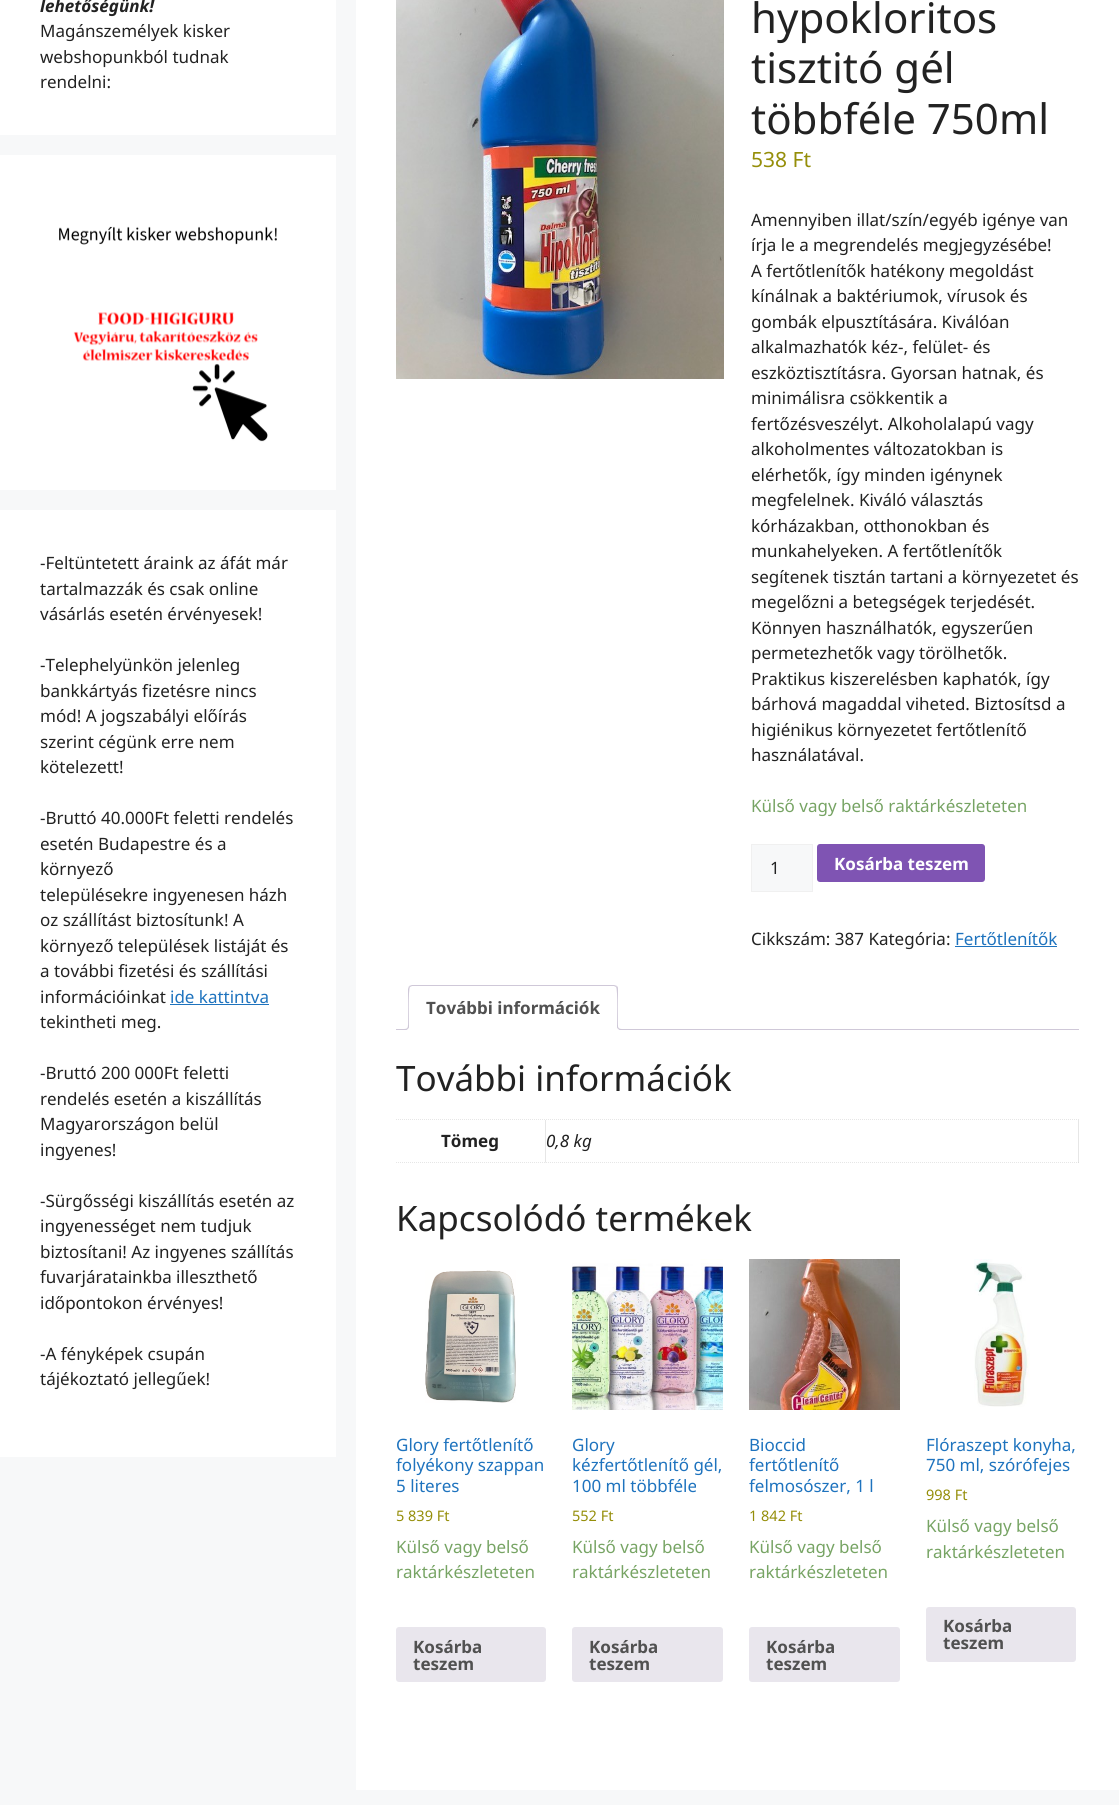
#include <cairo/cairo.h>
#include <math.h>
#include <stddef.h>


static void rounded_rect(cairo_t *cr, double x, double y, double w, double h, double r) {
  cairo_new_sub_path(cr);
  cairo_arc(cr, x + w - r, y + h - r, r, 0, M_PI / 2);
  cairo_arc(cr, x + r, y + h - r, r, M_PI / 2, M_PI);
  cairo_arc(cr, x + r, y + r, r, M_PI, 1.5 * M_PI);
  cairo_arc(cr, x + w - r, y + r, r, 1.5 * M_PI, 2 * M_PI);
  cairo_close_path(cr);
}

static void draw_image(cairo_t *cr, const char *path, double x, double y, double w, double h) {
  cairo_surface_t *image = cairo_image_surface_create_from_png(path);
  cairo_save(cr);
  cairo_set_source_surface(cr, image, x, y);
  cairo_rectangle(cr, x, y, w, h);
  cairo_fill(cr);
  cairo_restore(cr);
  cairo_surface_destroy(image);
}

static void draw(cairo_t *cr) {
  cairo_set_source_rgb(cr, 247 / 255.0, 248 / 255.0, 249 / 255.0);
  cairo_paint(cr);
  cairo_set_source_rgb(cr, 1, 1, 1);
  cairo_rectangle(cr, 0, 0, 336, 135);
  cairo_fill(cr);
  cairo_rectangle(cr, 0, 155, 336, 335);
  cairo_fill(cr);
  draw_image(cr, "images/1.png", 59, 226, 218, 216);
  cairo_rectangle(cr, 0, 510, 336, 947);
  cairo_fill(cr);
  cairo_set_source_rgb(cr, 30 / 255.0, 115 / 255.0, 190 / 255.0);
  cairo_rectangle(cr, 170, 1004, 99, 1);
  cairo_fill(cr);
  cairo_set_source_rgb(cr, 1, 1, 1);
  cairo_rectangle(cr, 356, 0, 763, 1790);
  cairo_fill(cr);
  draw_image(cr, "images/2.png", 396, 0, 328, 379);
  cairo_set_source_rgb(cr, 247 / 255.0, 248 / 255.0, 249 / 255.0);
  cairo_rectangle(cr, 751.5, 844.5, 61, 47);
  cairo_fill_preserve(cr);
  cairo_set_source_rgb(cr, 240 / 255.0, 240 / 255.0, 240 / 255.0);
  cairo_set_line_width(cr, 1);
  cairo_stroke(cr);
  cairo_set_source_rgb(cr, 127 / 255.0, 84 / 255.0, 179 / 255.0);
  rounded_rect(cr, 817, 844, 168, 38, 3);
  cairo_fill(cr);
  cairo_set_source_rgb(cr, 30 / 255.0, 115 / 255.0, 190 / 255.0);
  cairo_rectangle(cr, 955, 946, 102, 1);
  cairo_fill(cr);
  cairo_set_source_rgb(cr, 207 / 255.0, 200 / 255.0, 216 / 255.0);
  cairo_rectangle(cr, 396, 1029, 683, 1);
  cairo_fill(cr);
  cairo_set_source_rgb(cr, 1, 1, 1);
  cairo_new_path(cr);
  cairo_move_to(cr, 412, 985);
  cairo_line_to(cr, 614, 985);
  cairo_curve_to(cr, 616, 985, 618, 987, 618, 989);
  cairo_line_to(cr, 618, 1030);
  cairo_line_to(cr, 408, 1030);
  cairo_line_to(cr, 408, 989);
  cairo_curve_to(cr, 408, 987, 410, 985, 412, 985);
  cairo_close_path(cr);
  cairo_fill(cr);
  cairo_set_source_rgb(cr, 207 / 255.0, 200 / 255.0, 216 / 255.0);
  cairo_new_path(cr);
  cairo_move_to(cr, 412, 985);
  cairo_line_to(cr, 409, 986);
  cairo_line_to(cr, 410, 987);
  cairo_line_to(cr, 412, 986);
  cairo_line_to(cr, 614, 986);
  cairo_line_to(cr, 616, 987);
  cairo_line_to(cr, 617, 986);
  cairo_line_to(cr, 614, 985);
  cairo_close_path(cr);
  cairo_fill(cr);
  cairo_new_path(cr);
  cairo_move_to(cr, 618, 1030);
  cairo_line_to(cr, 618, 989);
  cairo_curve_to(cr, 618, 988, 618, 987, 617, 986);
  cairo_line_to(cr, 616, 987);
  cairo_curve_to(cr, 618, 989, 617, 1024, 617, 1029);
  cairo_close_path(cr);
  cairo_fill(cr);
  cairo_set_source_rgb(cr, 1, 1, 1);
  cairo_new_path(cr);
  cairo_move_to(cr, 618, 1030);
  cairo_line_to(cr, 617, 1029);
  cairo_line_to(cr, 409, 1029);
  cairo_line_to(cr, 408, 1030);
  cairo_close_path(cr);
  cairo_fill(cr);
  cairo_set_source_rgb(cr, 207 / 255.0, 200 / 255.0, 216 / 255.0);
  cairo_new_path(cr);
  cairo_move_to(cr, 408, 1030);
  cairo_line_to(cr, 409, 1029);
  cairo_curve_to(cr, 409, 1024, 408, 989, 410, 987);
  cairo_line_to(cr, 409, 986);
  cairo_line_to(cr, 408, 989);
  cairo_close_path(cr);
  cairo_fill(cr);
  cairo_save(cr);
  cairo_rectangle(cr, 396, 985, 683, 45);
  cairo_clip(cr);
  cairo_set_source_rgb(cr, 1, 1, 1);
  cairo_new_path(cr);
  cairo_move_to(cr, 406, 1030);
  cairo_line_to(cr, 406, 1032);
  cairo_curve_to(cr, 409.5, 1032, 411, 1030.5, 411, 1027);
  cairo_line_to(cr, 409, 1027);
  cairo_curve_to(cr, 408.5, 1028.5, 407.5, 1029.5, 406, 1030);
  cairo_close_path(cr);
  cairo_fill(cr);
  cairo_restore(cr);
  cairo_set_fill_rule(cr, CAIRO_FILL_RULE_EVEN_ODD);
  cairo_new_path(cr);
  cairo_move_to(cr, 404, 1025);
  cairo_line_to(cr, 409, 1025);
  cairo_curve_to(cr, 409, 1028.5, 407.5, 1030, 404, 1030);
  cairo_close_path(cr);
  cairo_move_to(cr, 404, 1025);
  cairo_line_to(cr, 408, 1025);
  cairo_curve_to(cr, 408, 1028, 407, 1029, 404, 1029);
  cairo_close_path(cr);
  cairo_fill(cr);
  cairo_save(cr);
  cairo_set_fill_rule(cr, CAIRO_FILL_RULE_WINDING);
  cairo_rectangle(cr, 396, 985, 683, 45);
  cairo_clip(cr);
  cairo_set_source_rgb(cr, 1, 1, 1);
  cairo_new_path(cr);
  cairo_move_to(cr, 615, 1027);
  cairo_curve_to(cr, 615, 1030.5, 616.5, 1032, 620, 1032);
  cairo_line_to(cr, 620, 1030);
  cairo_curve_to(cr, 618.5, 1029.5, 617.5, 1028.5, 617, 1027);
  cairo_close_path(cr);
  cairo_fill(cr);
  cairo_restore(cr);
  cairo_new_path(cr);
  cairo_move_to(cr, 617, 1025);
  cairo_line_to(cr, 622, 1025);
  cairo_line_to(cr, 622, 1030);
  cairo_curve_to(cr, 619.5, 1030, 617, 1029, 617, 1026);
  cairo_close_path(cr);
  cairo_move_to(cr, 618, 1025);
  cairo_line_to(cr, 622, 1025);
  cairo_line_to(cr, 622, 1029);
  cairo_curve_to(cr, 620, 1029, 618, 1028.5, 618, 1026);
  cairo_close_path(cr);
  cairo_fill(cr);
  cairo_new_path(cr);
  cairo_move_to(cr, 396, 1119.5);
  cairo_line_to(cr, 1079, 1119.5);
  cairo_set_source_rgb(cr, 230 / 255.0, 230 / 255.0, 230 / 255.0);
  cairo_set_dash(cr, (double[]){1, 1}, 2, 0);
  cairo_stroke(cr);
  cairo_set_fill_rule(cr, CAIRO_FILL_RULE_WINDING);
  cairo_new_path(cr);
  cairo_move_to(cr, 546, 1120);
  cairo_line_to(cr, 546, 1163);
  cairo_line_to(cr, 545, 1162);
  cairo_line_to(cr, 545, 1120);
  cairo_close_path(cr);
  cairo_fill(cr);
  cairo_new_path(cr);
  cairo_move_to(cr, 396, 1162.5);
  cairo_line_to(cr, 546, 1162.5);
  cairo_stroke(cr);
  cairo_new_path(cr);
  cairo_move_to(cr, 1079, 1120);
  cairo_line_to(cr, 1079, 1163);
  cairo_line_to(cr, 1078, 1162);
  cairo_line_to(cr, 1078, 1120);
  cairo_close_path(cr);
  cairo_fill(cr);
  cairo_new_path(cr);
  cairo_move_to(cr, 546, 1162.5);
  cairo_line_to(cr, 1079, 1162.5);
  cairo_set_source_rgba(cr, 0, 0, 0, 0.1);
  cairo_stroke(cr);
  draw_image(cr, "images/3.png", 425, 1270, 91, 133);
  cairo_set_source_rgb(cr, 233 / 255.0, 230 / 255.0, 237 / 255.0);
  rounded_rect(cr, 396, 1627, 150, 55, 3);
  cairo_fill(cr);
  draw_image(cr, "images/4.png", 572, 1259, 151, 151);
  rounded_rect(cr, 572, 1627, 151, 55, 3);
  cairo_fill(cr);
  draw_image(cr, "images/5.png", 749, 1259, 151, 151);
  rounded_rect(cr, 749, 1627, 151, 55, 3);
  cairo_fill(cr);
  draw_image(cr, "images/6.png", 974, 1259, 56, 148);
  rounded_rect(cr, 926, 1607, 150, 55, 3);
  cairo_fill(cr);
  cairo_select_font_face(cr, "Noto Sans", CAIRO_FONT_SLANT_ITALIC, CAIRO_FONT_WEIGHT_BOLD);
  cairo_set_font_size(cr, 17);
  cairo_set_source_rgb(cr, 34 / 255.0, 34 / 255.0, 34 / 255.0);
  cairo_move_to(cr, 40, 12);
  cairo_show_text(cr, "lehetőségünk!");
  cairo_select_font_face(cr, "Noto Sans", CAIRO_FONT_SLANT_NORMAL, CAIRO_FONT_WEIGHT_NORMAL);
  cairo_move_to(cr, 40, 37);
  cairo_show_text(cr, "Magánszemélyek kisker");
  cairo_move_to(cr, 40, 63);
  cairo_show_text(cr, "webshopunkból tudnak");
  cairo_move_to(cr, 40, 88);
  cairo_show_text(cr, "rendelni:");
  cairo_move_to(cr, 40, 569);
  cairo_show_text(cr, "-Feltüntetett áraink az áfát már");
  cairo_move_to(cr, 40, 595);
  cairo_show_text(cr, "tartalmazzák és csak online");
  cairo_move_to(cr, 40, 620);
  cairo_show_text(cr, "vásárlás esetén érvényesek!");
  cairo_move_to(cr, 40, 671);
  cairo_show_text(cr, "-Telephelyünkön jelenleg");
  cairo_move_to(cr, 40, 697);
  cairo_show_text(cr, "bankkártyás fizetésre nincs");
  cairo_move_to(cr, 40, 722);
  cairo_show_text(cr, "mód! A jogszabályi előírás");
  cairo_move_to(cr, 40, 748);
  cairo_show_text(cr, "szerint cégünk erre nem");
  cairo_move_to(cr, 40, 773);
  cairo_show_text(cr, "kötelezett!");
  cairo_move_to(cr, 40, 824);
  cairo_show_text(cr, "-Bruttó 40.000Ft feletti rendelés");
  cairo_move_to(cr, 40, 850);
  cairo_show_text(cr, "esetén Budapestre és a");
  cairo_move_to(cr, 40, 875);
  cairo_show_text(cr, "környező");
  cairo_move_to(cr, 40, 901);
  cairo_show_text(cr, "településekre ingyenesen házh");
  cairo_move_to(cr, 40, 926);
  cairo_show_text(cr, "oz szállítást biztosítunk! A");
  cairo_move_to(cr, 40, 952);
  cairo_show_text(cr, "környező települések listáját és");
  cairo_move_to(cr, 40, 977);
  cairo_show_text(cr, "a további fizetési és szállítási");
  cairo_move_to(cr, 40, 1003);
  cairo_show_text(cr, "információinkat");
  cairo_set_source_rgb(cr, 30 / 255.0, 115 / 255.0, 190 / 255.0);
  cairo_move_to(cr, 170, 1003);
  cairo_show_text(cr, "ide kattintva");
  cairo_set_source_rgb(cr, 34 / 255.0, 34 / 255.0, 34 / 255.0);
  cairo_move_to(cr, 40, 1028);
  cairo_show_text(cr, "tekintheti meg.");
  cairo_move_to(cr, 40, 1079);
  cairo_show_text(cr, "-Bruttó 200 000Ft feletti");
  cairo_move_to(cr, 40, 1105);
  cairo_show_text(cr, "rendelés esetén a kiszállítás");
  cairo_move_to(cr, 40, 1130);
  cairo_show_text(cr, "Magyarországon belül");
  cairo_move_to(cr, 40, 1156);
  cairo_show_text(cr, "ingyenes!");
  cairo_move_to(cr, 40, 1207);
  cairo_show_text(cr, "-Sürgősségi kiszállítás esetén az");
  cairo_move_to(cr, 40, 1232);
  cairo_show_text(cr, "ingyenességet nem tudjuk");
  cairo_move_to(cr, 40, 1258);
  cairo_show_text(cr, "biztosítani! Az ingyenes szállítás");
  cairo_move_to(cr, 40, 1283);
  cairo_show_text(cr, "fuvarjáratainkba illeszthető");
  cairo_move_to(cr, 40, 1309);
  cairo_show_text(cr, "időpontokon érvényes!");
  cairo_move_to(cr, 40, 1360);
  cairo_show_text(cr, "-A fényképek csupán");
  cairo_move_to(cr, 40, 1385);
  cairo_show_text(cr, "tájékoztató jellegűek!");
  cairo_set_font_size(cr, 42);
  cairo_move_to(cr, 751, 33);
  cairo_show_text(cr, "hypokloritos");
  cairo_move_to(cr, 751, 83);
  cairo_show_text(cr, "tisztitó gél");
  cairo_move_to(cr, 751, 134);
  cairo_show_text(cr, "többféle 750ml");
  cairo_set_font_size(cr, 21);
  cairo_set_source_rgb(cr, 149 / 255.0, 142 / 255.0, 9 / 255.0);
  cairo_move_to(cr, 751, 167);
  cairo_show_text(cr, "538 Ft");
  cairo_set_font_size(cr, 17);
  cairo_set_source_rgb(cr, 34 / 255.0, 34 / 255.0, 34 / 255.0);
  cairo_move_to(cr, 751, 226);
  cairo_show_text(cr, "Amennyiben illat/szín/egyéb igénye van");
  cairo_move_to(cr, 751, 251);
  cairo_show_text(cr, "írja le a megrendelés megjegyzésébe!");
  cairo_move_to(cr, 751, 277);
  cairo_show_text(cr, "A fertőtlenítők hatékony megoldást");
  cairo_move_to(cr, 751, 302);
  cairo_show_text(cr, "kínálnak a baktériumok, vírusok és");
  cairo_move_to(cr, 751, 328);
  cairo_show_text(cr, "gombák elpusztítására. Kiválóan");
  cairo_move_to(cr, 751, 353);
  cairo_show_text(cr, "alkalmazhatók kéz-, felület- és");
  cairo_move_to(cr, 751, 379);
  cairo_show_text(cr, "eszköztisztításra. Gyorsan hatnak, és");
  cairo_move_to(cr, 751, 404);
  cairo_show_text(cr, "minimálisra csökkentik a");
  cairo_move_to(cr, 751, 430);
  cairo_show_text(cr, "fertőzésveszélyt. Alkoholalapú vagy");
  cairo_move_to(cr, 751, 455);
  cairo_show_text(cr, "alkoholmentes változatokban is");
  cairo_move_to(cr, 751, 481);
  cairo_show_text(cr, "elérhetők, így minden igénynek");
  cairo_move_to(cr, 751, 506);
  cairo_show_text(cr, "megfelelnek. Kiváló választás");
  cairo_move_to(cr, 751, 532);
  cairo_show_text(cr, "kórházakban, otthonokban és");
  cairo_move_to(cr, 751, 557);
  cairo_show_text(cr, "munkahelyeken. A fertőtlenítők");
  cairo_move_to(cr, 751, 583);
  cairo_show_text(cr, "segítenek tisztán tartani a környezetet és");
  cairo_move_to(cr, 751, 608);
  cairo_show_text(cr, "megelőzni a betegségek terjedését.");
  cairo_move_to(cr, 751, 634);
  cairo_show_text(cr, "Könnyen használhatók, egyszerűen");
  cairo_move_to(cr, 751, 659);
  cairo_show_text(cr, "permetezhetők vagy törölhetők.");
  cairo_move_to(cr, 751, 685);
  cairo_show_text(cr, "Praktikus kiszerelésben kaphatók, így");
  cairo_move_to(cr, 751, 710);
  cairo_show_text(cr, "bárhová magaddal viheted. Biztosítsd a");
  cairo_move_to(cr, 751, 736);
  cairo_show_text(cr, "higiénikus környezetet fertőtlenítő");
  cairo_move_to(cr, 751, 761);
  cairo_show_text(cr, "használatával.");
  cairo_set_source_rgb(cr, 119 / 255.0, 164 / 255.0, 100 / 255.0);
  cairo_move_to(cr, 751, 812);
  cairo_show_text(cr, "Külső vagy belső raktárkészleteten");
  cairo_set_source_rgb(cr, 34 / 255.0, 34 / 255.0, 34 / 255.0);
  cairo_move_to(cr, 770, 874);
  cairo_show_text(cr, "1");
  cairo_select_font_face(cr, "Noto Sans", CAIRO_FONT_SLANT_NORMAL, CAIRO_FONT_WEIGHT_BOLD);
  cairo_set_source_rgb(cr, 1, 1, 1);
  cairo_move_to(cr, 834, 870);
  cairo_show_text(cr, "Kosárba teszem");
  cairo_select_font_face(cr, "Noto Sans", CAIRO_FONT_SLANT_NORMAL, CAIRO_FONT_WEIGHT_NORMAL);
  cairo_set_source_rgb(cr, 34 / 255.0, 34 / 255.0, 34 / 255.0);
  cairo_move_to(cr, 751, 945);
  cairo_show_text(cr, "Cikkszám: 387 Kategória:");
  cairo_set_source_rgb(cr, 30 / 255.0, 115 / 255.0, 190 / 255.0);
  cairo_move_to(cr, 955, 945);
  cairo_show_text(cr, "Fertőtlenítők");
  cairo_select_font_face(cr, "Noto Sans", CAIRO_FONT_SLANT_NORMAL, CAIRO_FONT_WEIGHT_BOLD);
  cairo_set_source_rgb(cr, 81 / 255.0, 81 / 255.0, 81 / 255.0);
  cairo_move_to(cr, 426, 1014);
  cairo_show_text(cr, "További információk");
  cairo_select_font_face(cr, "Noto Sans", CAIRO_FONT_SLANT_NORMAL, CAIRO_FONT_WEIGHT_NORMAL);
  cairo_set_font_size(cr, 35);
  cairo_set_source_rgb(cr, 34 / 255.0, 34 / 255.0, 34 / 255.0);
  cairo_move_to(cr, 396, 1091);
  cairo_show_text(cr, "További információk");
  cairo_select_font_face(cr, "Noto Sans", CAIRO_FONT_SLANT_NORMAL, CAIRO_FONT_WEIGHT_BOLD);
  cairo_set_font_size(cr, 17);
  cairo_move_to(cr, 441, 1147);
  cairo_show_text(cr, "Tömeg");
  cairo_select_font_face(cr, "Noto Sans", CAIRO_FONT_SLANT_ITALIC, CAIRO_FONT_WEIGHT_NORMAL);
  cairo_move_to(cr, 546, 1147);
  cairo_show_text(cr, "0,8 kg");
  cairo_select_font_face(cr, "Noto Sans", CAIRO_FONT_SLANT_NORMAL, CAIRO_FONT_WEIGHT_NORMAL);
  cairo_set_font_size(cr, 35);
  cairo_move_to(cr, 396, 1231);
  cairo_show_text(cr, "Kapcsolódó termékek");
  cairo_set_font_size(cr, 17);
  cairo_set_source_rgb(cr, 30 / 255.0, 115 / 255.0, 190 / 255.0);
  cairo_move_to(cr, 396, 1451);
  cairo_show_text(cr, "Glory fertőtlenítő");
  cairo_move_to(cr, 396, 1471);
  cairo_show_text(cr, "folyékony szappan");
  cairo_move_to(cr, 396, 1492);
  cairo_show_text(cr, "5 literes");
  cairo_set_font_size(cr, 14.5);
  cairo_set_source_rgb(cr, 149 / 255.0, 142 / 255.0, 9 / 255.0);
  cairo_move_to(cr, 396, 1521);
  cairo_show_text(cr, "5 839 Ft");
  cairo_set_font_size(cr, 17);
  cairo_set_source_rgb(cr, 119 / 255.0, 164 / 255.0, 100 / 255.0);
  cairo_move_to(cr, 396, 1553);
  cairo_show_text(cr, "Külső vagy belső");
  cairo_move_to(cr, 396, 1578);
  cairo_show_text(cr, "raktárkészleteten");
  cairo_select_font_face(cr, "Noto Sans", CAIRO_FONT_SLANT_NORMAL, CAIRO_FONT_WEIGHT_BOLD);
  cairo_set_source_rgb(cr, 81 / 255.0, 81 / 255.0, 81 / 255.0);
  cairo_move_to(cr, 413, 1653);
  cairo_show_text(cr, "Kosárba");
  cairo_move_to(cr, 413, 1670);
  cairo_show_text(cr, "teszem");
  cairo_select_font_face(cr, "Noto Sans", CAIRO_FONT_SLANT_NORMAL, CAIRO_FONT_WEIGHT_NORMAL);
  cairo_set_source_rgb(cr, 30 / 255.0, 115 / 255.0, 190 / 255.0);
  cairo_move_to(cr, 572, 1451);
  cairo_show_text(cr, "Glory");
  cairo_move_to(cr, 572, 1471);
  cairo_show_text(cr, "kézfertőtlenítő gél,");
  cairo_move_to(cr, 572, 1492);
  cairo_show_text(cr, "100 ml többféle");
  cairo_set_font_size(cr, 14.5);
  cairo_set_source_rgb(cr, 149 / 255.0, 142 / 255.0, 9 / 255.0);
  cairo_move_to(cr, 572, 1521);
  cairo_show_text(cr, "552 Ft");
  cairo_set_font_size(cr, 17);
  cairo_set_source_rgb(cr, 119 / 255.0, 164 / 255.0, 100 / 255.0);
  cairo_move_to(cr, 572, 1553);
  cairo_show_text(cr, "Külső vagy belső");
  cairo_move_to(cr, 572, 1578);
  cairo_show_text(cr, "raktárkészleteten");
  cairo_select_font_face(cr, "Noto Sans", CAIRO_FONT_SLANT_NORMAL, CAIRO_FONT_WEIGHT_BOLD);
  cairo_set_source_rgb(cr, 81 / 255.0, 81 / 255.0, 81 / 255.0);
  cairo_move_to(cr, 589, 1653);
  cairo_show_text(cr, "Kosárba");
  cairo_move_to(cr, 589, 1670);
  cairo_show_text(cr, "teszem");
  cairo_select_font_face(cr, "Noto Sans", CAIRO_FONT_SLANT_NORMAL, CAIRO_FONT_WEIGHT_NORMAL);
  cairo_set_source_rgb(cr, 30 / 255.0, 115 / 255.0, 190 / 255.0);
  cairo_move_to(cr, 749, 1451);
  cairo_show_text(cr, "Bioccid");
  cairo_move_to(cr, 749, 1471);
  cairo_show_text(cr, "fertőtlenítő");
  cairo_move_to(cr, 749, 1492);
  cairo_show_text(cr, "felmosószer, 1 l");
  cairo_set_font_size(cr, 14.5);
  cairo_set_source_rgb(cr, 149 / 255.0, 142 / 255.0, 9 / 255.0);
  cairo_move_to(cr, 749, 1521);
  cairo_show_text(cr, "1 842 Ft");
  cairo_set_font_size(cr, 17);
  cairo_set_source_rgb(cr, 119 / 255.0, 164 / 255.0, 100 / 255.0);
  cairo_move_to(cr, 749, 1553);
  cairo_show_text(cr, "Külső vagy belső");
  cairo_move_to(cr, 749, 1578);
  cairo_show_text(cr, "raktárkészleteten");
  cairo_select_font_face(cr, "Noto Sans", CAIRO_FONT_SLANT_NORMAL, CAIRO_FONT_WEIGHT_BOLD);
  cairo_set_source_rgb(cr, 81 / 255.0, 81 / 255.0, 81 / 255.0);
  cairo_move_to(cr, 766, 1653);
  cairo_show_text(cr, "Kosárba");
  cairo_move_to(cr, 766, 1670);
  cairo_show_text(cr, "teszem");
  cairo_select_font_face(cr, "Noto Sans", CAIRO_FONT_SLANT_NORMAL, CAIRO_FONT_WEIGHT_NORMAL);
  cairo_set_source_rgb(cr, 30 / 255.0, 115 / 255.0, 190 / 255.0);
  cairo_move_to(cr, 926, 1451);
  cairo_show_text(cr, "Flóraszept konyha,");
  cairo_move_to(cr, 926, 1471);
  cairo_show_text(cr, "750 ml, szórófejes");
  cairo_set_font_size(cr, 14.5);
  cairo_set_source_rgb(cr, 149 / 255.0, 142 / 255.0, 9 / 255.0);
  cairo_move_to(cr, 926, 1500);
  cairo_show_text(cr, "998 Ft");
  cairo_set_font_size(cr, 17);
  cairo_set_source_rgb(cr, 119 / 255.0, 164 / 255.0, 100 / 255.0);
  cairo_move_to(cr, 926, 1532);
  cairo_show_text(cr, "Külső vagy belső");
  cairo_move_to(cr, 926, 1558);
  cairo_show_text(cr, "raktárkészleteten");
  cairo_select_font_face(cr, "Noto Sans", CAIRO_FONT_SLANT_NORMAL, CAIRO_FONT_WEIGHT_BOLD);
  cairo_set_source_rgb(cr, 81 / 255.0, 81 / 255.0, 81 / 255.0);
  cairo_move_to(cr, 943, 1632);
  cairo_show_text(cr, "Kosárba");
  cairo_move_to(cr, 943, 1649);
  cairo_show_text(cr, "teszem");
}

int main(void) {
  cairo_surface_t *surface = cairo_image_surface_create(CAIRO_FORMAT_RGB24, 1119, 1805);
  cairo_t *cr = cairo_create(surface);
  cairo_font_options_t *options = cairo_font_options_create();
  cairo_font_options_set_hint_metrics(options, CAIRO_HINT_METRICS_OFF);
  cairo_font_options_set_hint_style(options, CAIRO_HINT_STYLE_NONE);
  cairo_set_font_options(cr, options);
  cairo_set_miter_limit(cr, 4);
  draw(cr);
  cairo_surface_write_to_png(surface, "out.png");
  cairo_font_options_destroy(options);
  cairo_destroy(cr);
  cairo_surface_destroy(surface);
  return 0;
}
